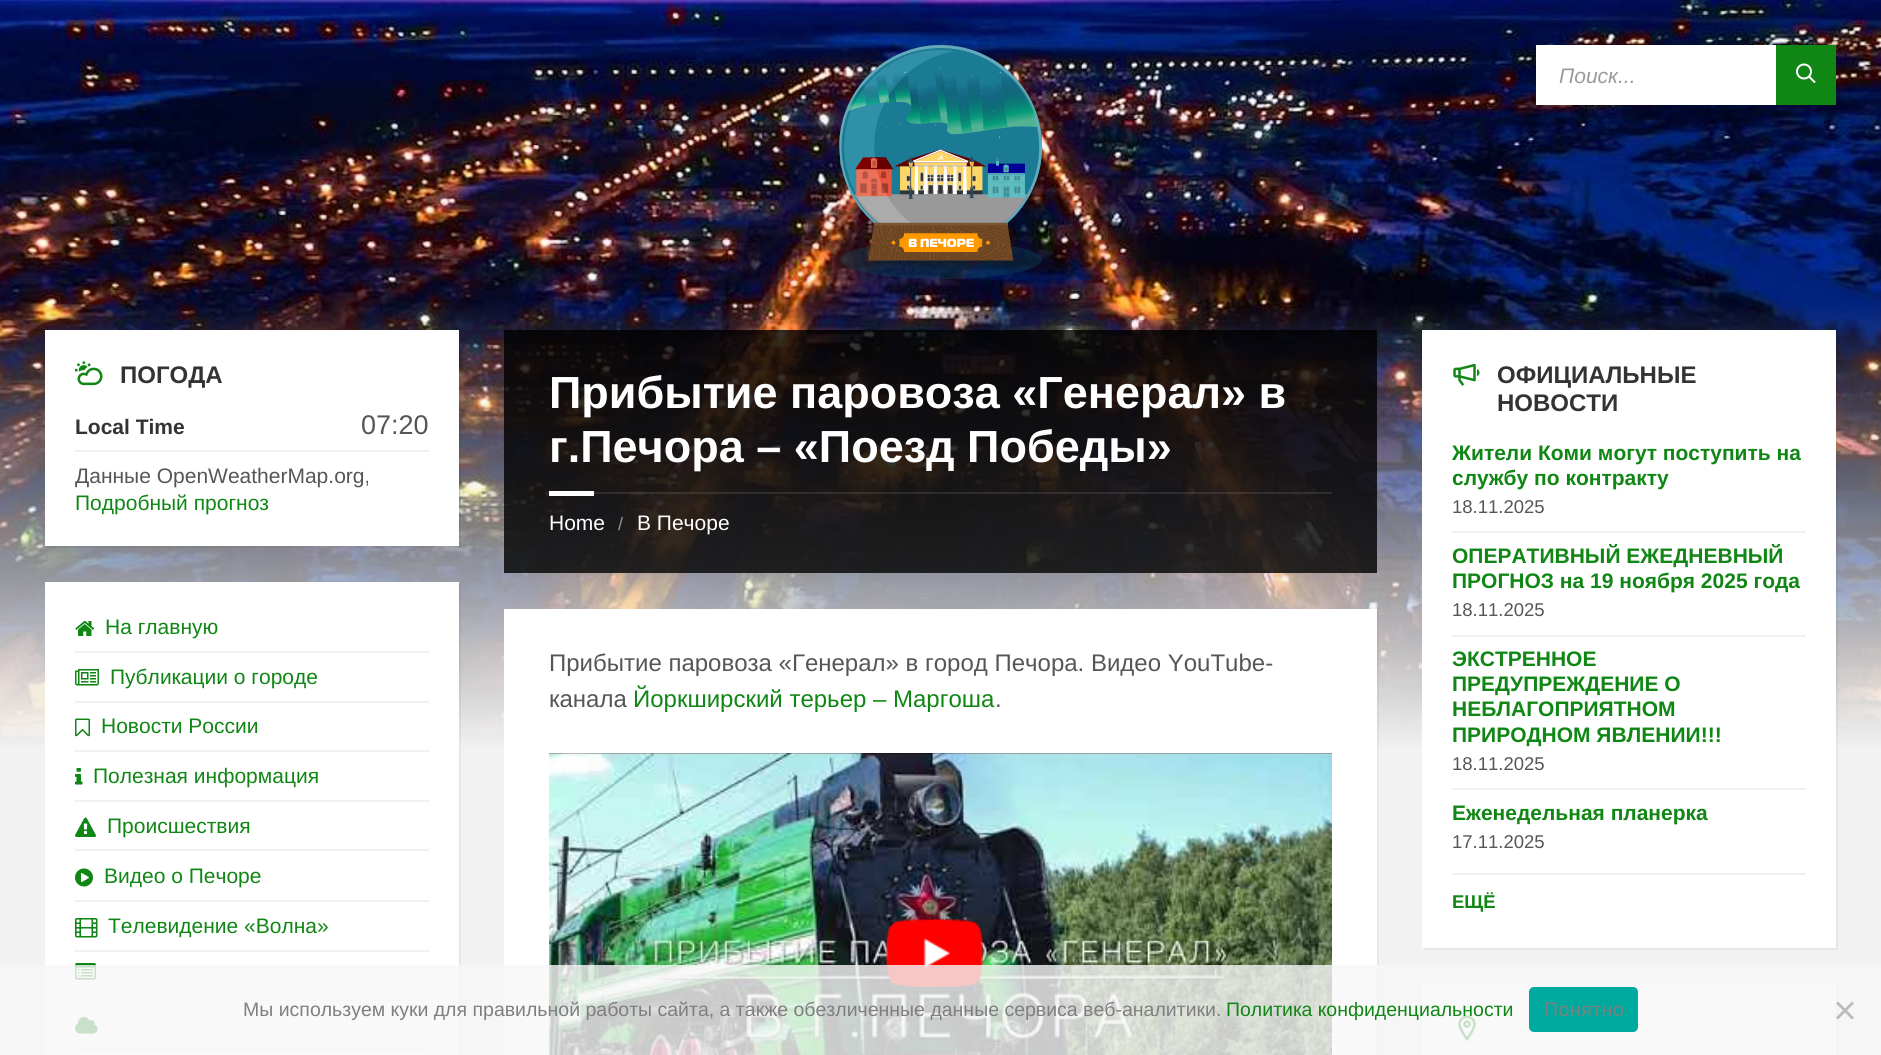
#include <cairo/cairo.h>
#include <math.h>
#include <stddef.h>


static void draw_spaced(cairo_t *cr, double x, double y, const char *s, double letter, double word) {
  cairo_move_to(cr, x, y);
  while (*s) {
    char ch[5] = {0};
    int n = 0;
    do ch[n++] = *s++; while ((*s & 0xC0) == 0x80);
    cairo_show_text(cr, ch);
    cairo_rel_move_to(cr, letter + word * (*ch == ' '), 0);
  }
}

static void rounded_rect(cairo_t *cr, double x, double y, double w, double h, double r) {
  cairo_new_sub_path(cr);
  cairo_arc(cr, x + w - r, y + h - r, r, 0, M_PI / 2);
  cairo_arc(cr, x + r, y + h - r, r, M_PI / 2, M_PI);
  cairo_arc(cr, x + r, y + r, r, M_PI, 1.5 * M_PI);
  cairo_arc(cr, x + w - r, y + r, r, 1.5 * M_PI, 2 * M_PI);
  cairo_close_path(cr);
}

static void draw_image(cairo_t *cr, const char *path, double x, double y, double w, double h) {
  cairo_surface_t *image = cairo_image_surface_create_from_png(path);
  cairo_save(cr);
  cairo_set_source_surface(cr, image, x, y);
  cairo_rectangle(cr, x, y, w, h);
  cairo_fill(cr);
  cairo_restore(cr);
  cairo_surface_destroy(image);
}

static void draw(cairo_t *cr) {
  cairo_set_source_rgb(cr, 242 / 255.0, 242 / 255.0, 242 / 255.0);
  cairo_paint(cr);
  draw_image(cr, "images/1.png", 0, 0, 1881, 750);
  draw_image(cr, "images/2.png", 839, 45, 204, 234);
  cairo_set_source_rgb(cr, 1, 1, 1);
  cairo_rectangle(cr, 1536, 45, 240, 60);
  cairo_fill(cr);
  cairo_set_source_rgb(cr, 16 / 255.0, 134 / 255.0, 21 / 255.0);
  cairo_rectangle(cr, 1776, 45, 60, 60);
  cairo_fill(cr);
  draw_image(cr, "images/3.png", 1796, 63, 20, 21);
  cairo_set_source_rgba(cr, 0, 0, 0, 0.05);
  cairo_new_path(cr);
  cairo_move_to(cr, 47, 546);
  cairo_line_to(cr, 47, 548);
  cairo_line_to(cr, 461, 548);
  cairo_line_to(cr, 461, 332);
  cairo_line_to(cr, 459, 332);
  cairo_line_to(cr, 459, 546);
  cairo_close_path(cr);
  cairo_fill(cr);
  cairo_set_source_rgb(cr, 1, 1, 1);
  cairo_rectangle(cr, 45, 330, 414, 216);
  cairo_fill(cr);
  draw_image(cr, "images/4.png", 75, 361, 28, 25);
  cairo_set_source_rgb(cr, 240 / 255.0, 240 / 255.0, 240 / 255.0);
  cairo_rectangle(cr, 75, 450, 354, 2);
  cairo_fill(cr);
  cairo_set_source_rgba(cr, 0, 0, 0, 0.05);
  cairo_new_path(cr);
  cairo_move_to(cr, 47, 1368);
  cairo_line_to(cr, 47, 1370);
  cairo_line_to(cr, 461, 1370);
  cairo_line_to(cr, 461, 584);
  cairo_line_to(cr, 459, 584);
  cairo_line_to(cr, 459, 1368);
  cairo_close_path(cr);
  cairo_fill(cr);
  cairo_set_source_rgb(cr, 1, 1, 1);
  cairo_rectangle(cr, 45, 582, 414, 473);
  cairo_fill(cr);
  draw_image(cr, "images/5.png", 75, 621, 20, 15);
  cairo_set_source_rgb(cr, 240 / 255.0, 240 / 255.0, 240 / 255.0);
  cairo_rectangle(cr, 75, 651, 354, 2);
  cairo_fill(cr);
  draw_image(cr, "images/6.png", 75, 669, 24, 17);
  cairo_rectangle(cr, 75, 701, 354, 2);
  cairo_fill(cr);
  draw_image(cr, "images/7.png", 75, 718, 15, 19);
  cairo_rectangle(cr, 75, 750, 354, 2);
  cairo_fill(cr);
  draw_image(cr, "images/8.png", 75, 768, 8, 17);
  cairo_rectangle(cr, 75, 800, 354, 2);
  cairo_fill(cr);
  draw_image(cr, "images/9.png", 75, 817, 21, 20);
  cairo_rectangle(cr, 75, 849, 354, 2);
  cairo_fill(cr);
  draw_image(cr, "images/10.png", 75, 868, 18, 19);
  cairo_rectangle(cr, 75, 900, 354, 2);
  cairo_fill(cr);
  draw_image(cr, "images/11.png", 75, 918, 23, 20);
  cairo_rectangle(cr, 75, 950, 354, 2);
  cairo_fill(cr);
  draw_image(cr, "images/12.png", 75, 963, 21, 17);
  cairo_rectangle(cr, 75, 999, 354, 2);
  cairo_fill(cr);
  draw_image(cr, "images/13.png", 75, 1017, 23, 17);
  cairo_rectangle(cr, 75, 1049, 354, 2);
  cairo_fill(cr);
  cairo_set_source_rgba(cr, 0, 0, 0, 0.8);
  cairo_rectangle(cr, 504, 330, 873, 243);
  cairo_fill(cr);
  cairo_set_source_rgba(cr, 1, 1, 1, 0.1);
  cairo_rectangle(cr, 594, 492, 738, 2);
  cairo_fill(cr);
  cairo_set_source_rgb(cr, 1, 1, 1);
  cairo_rectangle(cr, 549, 491, 45, 5);
  cairo_fill(cr);
  cairo_set_source_rgba(cr, 0, 0, 0, 0.05);
  cairo_new_path(cr);
  cairo_move_to(cr, 506, 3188);
  cairo_line_to(cr, 506, 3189);
  cairo_line_to(cr, 1379, 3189);
  cairo_line_to(cr, 1379, 611);
  cairo_line_to(cr, 1377, 611);
  cairo_line_to(cr, 1377, 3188);
  cairo_close_path(cr);
  cairo_fill(cr);
  cairo_set_source_rgb(cr, 1, 1, 1);
  cairo_rectangle(cr, 504, 609, 873, 446);
  cairo_fill(cr);
  draw_image(cr, "images/14.png", 549, 753, 783, 302);
  draw_image(cr, "images/15.png", 886, 919, 97, 68);
  cairo_set_source_rgba(cr, 0, 0, 0, 0.05);
  cairo_new_path(cr);
  cairo_move_to(cr, 1424, 948);
  cairo_line_to(cr, 1424, 950);
  cairo_line_to(cr, 1838, 950);
  cairo_line_to(cr, 1838, 332);
  cairo_line_to(cr, 1836, 332);
  cairo_line_to(cr, 1836, 948);
  cairo_close_path(cr);
  cairo_fill(cr);
  cairo_set_source_rgb(cr, 1, 1, 1);
  cairo_rectangle(cr, 1422, 330, 414, 618);
  cairo_fill(cr);
  draw_image(cr, "images/16.png", 1453, 363, 27, 23);
  cairo_set_source_rgb(cr, 240 / 255.0, 240 / 255.0, 240 / 255.0);
  cairo_rectangle(cr, 1452, 531, 354, 2);
  cairo_fill(cr);
  cairo_rectangle(cr, 1452, 635, 354, 2);
  cairo_fill(cr);
  cairo_rectangle(cr, 1452, 788, 354, 2);
  cairo_fill(cr);
  cairo_rectangle(cr, 1452, 873, 354, 2);
  cairo_fill(cr);
  cairo_set_source_rgb(cr, 230 / 255.0, 230 / 255.0, 230 / 255.0);
  cairo_new_path(cr);
  cairo_move_to(cr, 1424, 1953);
  cairo_line_to(cr, 1424, 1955);
  cairo_line_to(cr, 1838, 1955);
  cairo_line_to(cr, 1838, 986);
  cairo_line_to(cr, 1836, 986);
  cairo_line_to(cr, 1836, 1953);
  cairo_close_path(cr);
  cairo_fill(cr);
  cairo_set_source_rgb(cr, 1, 1, 1);
  cairo_rectangle(cr, 1422, 984, 414, 71);
  cairo_fill(cr);
  draw_image(cr, "images/17.png", 1458, 1015, 18, 26);
  cairo_set_source_rgba(cr, 247 / 255.0, 247 / 255.0, 247 / 255.0, 0.8);
  cairo_rectangle(cr, 0, 965, 1881, 90);
  cairo_fill(cr);
  cairo_set_source_rgb(cr, 0, 169 / 255.0, 157 / 255.0);
  rounded_rect(cr, 1529, 987, 109, 45, 5);
  cairo_fill(cr);
  cairo_set_source_rgb(cr, 187 / 255.0, 187 / 255.0, 187 / 255.0);
  cairo_new_path(cr);
  cairo_move_to(cr, 1852, 1001.5);
  cairo_line_to(cr, 1854, 1003.5);
  cairo_line_to(cr, 1838, 1019.5);
  cairo_line_to(cr, 1836, 1017.5);
  cairo_close_path(cr);
  cairo_fill(cr);
  cairo_new_path(cr);
  cairo_move_to(cr, 1836, 1003.5);
  cairo_line_to(cr, 1838, 1001.5);
  cairo_line_to(cr, 1854, 1017.5);
  cairo_line_to(cr, 1852, 1019.5);
  cairo_close_path(cr);
  cairo_fill(cr);
  cairo_select_font_face(cr, "Liberation Sans", CAIRO_FONT_SLANT_ITALIC, CAIRO_FONT_WEIGHT_NORMAL);
  cairo_set_font_size(cr, 21);
  cairo_set_source_rgb(cr, 154 / 255.0, 154 / 255.0, 154 / 255.0);
  cairo_move_to(cr, 1559, 83);
  cairo_show_text(cr, "Поиск...");
  cairo_select_font_face(cr, "Liberation Sans", CAIRO_FONT_SLANT_NORMAL, CAIRO_FONT_WEIGHT_BOLD);
  cairo_set_font_size(cr, 24);
  cairo_set_source_rgb(cr, 51 / 255.0, 51 / 255.0, 51 / 255.0);
  cairo_move_to(cr, 120, 383);
  cairo_show_text(cr, "ПОГОДА");
  cairo_set_font_size(cr, 21);
  cairo_move_to(cr, 75, 434);
  cairo_show_text(cr, "Local Time");
  cairo_select_font_face(cr, "Liberation Sans", CAIRO_FONT_SLANT_NORMAL, CAIRO_FONT_WEIGHT_NORMAL);
  cairo_set_font_size(cr, 27);
  cairo_set_source_rgb(cr, 86 / 255.0, 86 / 255.0, 86 / 255.0);
  cairo_move_to(cr, 361, 434);
  cairo_show_text(cr, "07:20");
  cairo_set_font_size(cr, 21);
  cairo_move_to(cr, 75, 483);
  cairo_show_text(cr, "Данные OpenWeatherMap.org,");
  cairo_set_source_rgb(cr, 16 / 255.0, 134 / 255.0, 21 / 255.0);
  cairo_move_to(cr, 75, 510);
  cairo_show_text(cr, "Подробный прогноз");
  cairo_move_to(cr, 105, 634);
  cairo_show_text(cr, "На главную");
  cairo_move_to(cr, 110, 684);
  cairo_show_text(cr, "Публикации о городе");
  cairo_move_to(cr, 101, 733);
  cairo_show_text(cr, "Новости России");
  cairo_move_to(cr, 93, 783);
  cairo_show_text(cr, "Полезная информация");
  cairo_move_to(cr, 107, 833);
  cairo_show_text(cr, "Происшествия");
  cairo_move_to(cr, 104, 883);
  cairo_show_text(cr, "Видео о Печоре");
  cairo_move_to(cr, 108, 933);
  cairo_show_text(cr, "Телевидение «Волна»");
  cairo_select_font_face(cr, "Liberation Sans", CAIRO_FONT_SLANT_NORMAL, CAIRO_FONT_WEIGHT_BOLD);
  cairo_set_font_size(cr, 45);
  cairo_set_source_rgb(cr, 1, 1, 1);
  cairo_move_to(cr, 549, 408);
  cairo_show_text(cr, "Прибытие паровоза «Генерал» в");
  cairo_move_to(cr, 549, 462);
  cairo_show_text(cr, "г.Печора – «Поезд Победы»");
  cairo_select_font_face(cr, "Liberation Sans", CAIRO_FONT_SLANT_NORMAL, CAIRO_FONT_WEIGHT_NORMAL);
  cairo_set_font_size(cr, 21);
  cairo_move_to(cr, 549, 530);
  cairo_show_text(cr, "Home");
  cairo_set_font_size(cr, 18);
  cairo_set_source_rgb(cr, 138 / 255.0, 148 / 255.0, 155 / 255.0);
  cairo_move_to(cr, 618, 530);
  cairo_show_text(cr, "/");
  cairo_set_font_size(cr, 21);
  cairo_set_source_rgb(cr, 1, 1, 1);
  cairo_move_to(cr, 637, 530);
  cairo_show_text(cr, "В Печоре");
  cairo_set_font_size(cr, 24);
  cairo_set_source_rgb(cr, 86 / 255.0, 86 / 255.0, 86 / 255.0);
  cairo_move_to(cr, 549, 671);
  cairo_show_text(cr, "Прибытие паровоза «Генерал» в город Печора. Видео YouTube-");
  cairo_move_to(cr, 549, 707);
  cairo_show_text(cr, "канала");
  cairo_set_source_rgb(cr, 16 / 255.0, 134 / 255.0, 21 / 255.0);
  cairo_move_to(cr, 633, 707);
  cairo_show_text(cr, "Йоркширский терьер – Маргоша");
  cairo_set_source_rgb(cr, 86 / 255.0, 86 / 255.0, 86 / 255.0);
  cairo_move_to(cr, 995, 707);
  cairo_show_text(cr, ".");
  cairo_select_font_face(cr, "Liberation Sans", CAIRO_FONT_SLANT_NORMAL, CAIRO_FONT_WEIGHT_BOLD);
  cairo_set_source_rgb(cr, 51 / 255.0, 51 / 255.0, 51 / 255.0);
  cairo_move_to(cr, 1497, 383);
  cairo_show_text(cr, "ОФИЦИАЛЬНЫЕ");
  cairo_move_to(cr, 1497, 411);
  cairo_show_text(cr, "НОВОСТИ");
  cairo_set_font_size(cr, 21);
  cairo_set_source_rgb(cr, 16 / 255.0, 134 / 255.0, 21 / 255.0);
  cairo_move_to(cr, 1452, 460);
  cairo_show_text(cr, "Жители Коми могут поступить на");
  cairo_move_to(cr, 1452, 485);
  cairo_show_text(cr, "службу по контракту");
  cairo_select_font_face(cr, "Liberation Sans", CAIRO_FONT_SLANT_NORMAL, CAIRO_FONT_WEIGHT_NORMAL);
  cairo_set_font_size(cr, 18.5);
  cairo_set_source_rgb(cr, 86 / 255.0, 86 / 255.0, 86 / 255.0);
  cairo_move_to(cr, 1452, 513);
  cairo_show_text(cr, "18.11.2025");
  cairo_select_font_face(cr, "Liberation Sans", CAIRO_FONT_SLANT_NORMAL, CAIRO_FONT_WEIGHT_BOLD);
  cairo_set_font_size(cr, 21);
  cairo_set_source_rgb(cr, 16 / 255.0, 134 / 255.0, 21 / 255.0);
  cairo_move_to(cr, 1452, 563);
  cairo_show_text(cr, "ОПЕРАТИВНЫЙ ЕЖЕДНЕВНЫЙ");
  cairo_move_to(cr, 1452, 588);
  cairo_show_text(cr, "ПРОГНОЗ на 19 ноября 2025 года");
  cairo_select_font_face(cr, "Liberation Sans", CAIRO_FONT_SLANT_NORMAL, CAIRO_FONT_WEIGHT_NORMAL);
  cairo_set_font_size(cr, 18.5);
  cairo_set_source_rgb(cr, 86 / 255.0, 86 / 255.0, 86 / 255.0);
  cairo_move_to(cr, 1452, 616);
  cairo_show_text(cr, "18.11.2025");
  cairo_select_font_face(cr, "Liberation Sans", CAIRO_FONT_SLANT_NORMAL, CAIRO_FONT_WEIGHT_BOLD);
  cairo_set_font_size(cr, 21);
  cairo_set_source_rgb(cr, 16 / 255.0, 134 / 255.0, 21 / 255.0);
  cairo_move_to(cr, 1452, 666);
  cairo_show_text(cr, "ЭКСТРЕННОЕ");
  cairo_move_to(cr, 1452, 691);
  cairo_show_text(cr, "ПРЕДУПРЕЖДЕНИЕ О");
  cairo_move_to(cr, 1452, 716);
  cairo_show_text(cr, "НЕБЛАГОПРИЯТНОМ");
  cairo_move_to(cr, 1452, 742);
  cairo_show_text(cr, "ПРИРОДНОМ ЯВЛЕНИИ!!!");
  cairo_select_font_face(cr, "Liberation Sans", CAIRO_FONT_SLANT_NORMAL, CAIRO_FONT_WEIGHT_NORMAL);
  cairo_set_font_size(cr, 18.5);
  cairo_set_source_rgb(cr, 86 / 255.0, 86 / 255.0, 86 / 255.0);
  cairo_move_to(cr, 1452, 770);
  cairo_show_text(cr, "18.11.2025");
  cairo_select_font_face(cr, "Liberation Sans", CAIRO_FONT_SLANT_NORMAL, CAIRO_FONT_WEIGHT_BOLD);
  cairo_set_font_size(cr, 21);
  cairo_set_source_rgb(cr, 16 / 255.0, 134 / 255.0, 21 / 255.0);
  cairo_move_to(cr, 1452, 820);
  cairo_show_text(cr, "Еженедельная планерка");
  cairo_select_font_face(cr, "Liberation Sans", CAIRO_FONT_SLANT_NORMAL, CAIRO_FONT_WEIGHT_NORMAL);
  cairo_set_font_size(cr, 18.5);
  cairo_set_source_rgb(cr, 86 / 255.0, 86 / 255.0, 86 / 255.0);
  cairo_move_to(cr, 1452, 848);
  cairo_show_text(cr, "17.11.2025");
  cairo_select_font_face(cr, "Liberation Sans", CAIRO_FONT_SLANT_NORMAL, CAIRO_FONT_WEIGHT_BOLD);
  cairo_set_source_rgb(cr, 16 / 255.0, 134 / 255.0, 21 / 255.0);
  cairo_move_to(cr, 1452, 908);
  cairo_show_text(cr, "ЕЩЁ");
  cairo_select_font_face(cr, "Liberation Sans", CAIRO_FONT_SLANT_NORMAL, CAIRO_FONT_WEIGHT_NORMAL);
  cairo_set_font_size(cr, 19.5);
  cairo_set_source_rgb(cr, 127 / 255.0, 127 / 255.0, 127 / 255.0);
  cairo_move_to(cr, 243, 1016);
  cairo_show_text(cr, "Мы используем куки для правильной работы сайта, а также обезличенные данные сервиса веб-аналитики.");
  cairo_set_source_rgb(cr, 16 / 255.0, 134 / 255.0, 21 / 255.0);
  cairo_move_to(cr, 1226, 1016);
  cairo_show_text(cr, "Политика конфиденциальности");
  cairo_set_source_rgb(cr, 127 / 255.0, 127 / 255.0, 127 / 255.0);
  draw_spaced(cr, 1544, 1016, "Понятно", 0.5, 0);
}

int main(void) {
  cairo_surface_t *surface = cairo_image_surface_create(CAIRO_FORMAT_RGB24, 1881, 1055);
  cairo_t *cr = cairo_create(surface);
  cairo_font_options_t *options = cairo_font_options_create();
  cairo_font_options_set_hint_metrics(options, CAIRO_HINT_METRICS_OFF);
  cairo_font_options_set_hint_style(options, CAIRO_HINT_STYLE_NONE);
  cairo_set_font_options(cr, options);
  cairo_set_miter_limit(cr, 4);
  draw(cr);
  cairo_surface_write_to_png(surface, "out.png");
  cairo_font_options_destroy(options);
  cairo_destroy(cr);
  cairo_surface_destroy(surface);
  return 0;
}
